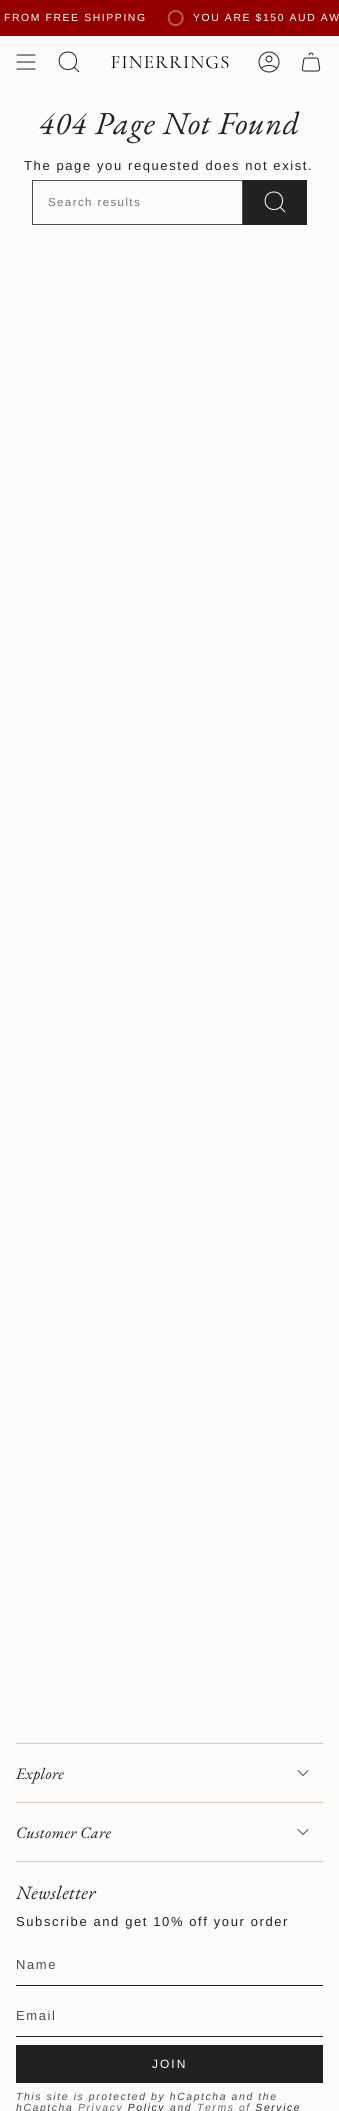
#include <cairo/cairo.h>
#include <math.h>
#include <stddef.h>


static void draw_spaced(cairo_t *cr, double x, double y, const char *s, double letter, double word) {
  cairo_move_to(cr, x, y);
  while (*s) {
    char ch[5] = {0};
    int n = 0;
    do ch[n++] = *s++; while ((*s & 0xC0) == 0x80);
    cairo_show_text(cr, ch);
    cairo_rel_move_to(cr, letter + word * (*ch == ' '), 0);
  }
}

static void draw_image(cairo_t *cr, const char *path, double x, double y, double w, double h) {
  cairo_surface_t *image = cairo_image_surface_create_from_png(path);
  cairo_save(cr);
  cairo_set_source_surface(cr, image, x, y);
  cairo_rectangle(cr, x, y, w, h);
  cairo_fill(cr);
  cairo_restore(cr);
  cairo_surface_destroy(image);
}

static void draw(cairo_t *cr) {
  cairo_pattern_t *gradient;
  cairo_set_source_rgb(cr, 252 / 255.0, 251 / 255.0, 249 / 255.0);
  cairo_paint(cr);
  cairo_set_source_rgb(cr, 148 / 255.0, 0, 0);
  cairo_rectangle(cr, 0, 0, 339, 36);
  cairo_fill(cr);
  cairo_new_path(cr);
  cairo_move_to(cr, 175.5, 11);
  cairo_curve_to(cr, 166.5, 11, 166.5, 25, 175.5, 25);
  cairo_curve_to(cr, 185, 25, 185, 11, 175.5, 11);
  cairo_close_path(cr);
  cairo_set_source_rgb(cr, 185 / 255.0, 89 / 255.0, 89 / 255.0);
  cairo_stroke(cr);
  cairo_new_path(cr);
  cairo_move_to(cr, 17, 55);
  cairo_line_to(cr, 35, 55);
  cairo_move_to(cr, 17, 62);
  cairo_line_to(cr, 35, 62);
  cairo_move_to(cr, 17, 69);
  cairo_line_to(cr, 35, 69);
  cairo_set_source_rgb(cr, 33 / 255.0, 33 / 255.0, 33 / 255.0);
  cairo_set_line_width(cr, 1);
  cairo_set_line_cap(cr, CAIRO_LINE_CAP_ROUND);
  cairo_set_line_join(cr, CAIRO_LINE_JOIN_ROUND);
  cairo_stroke(cr);
  cairo_new_path(cr);
  cairo_move_to(cr, 68, 52);
  cairo_curve_to(cr, 79.5, 52, 79.5, 70, 67.5, 69.5);
  cairo_curve_to(cr, 56, 69, 56.5, 52, 68, 52);
  cairo_close_path(cr);
  cairo_move_to(cr, 74, 67);
  cairo_line_to(cr, 79, 72);
  cairo_set_line_cap(cr, CAIRO_LINE_CAP_BUTT);
  cairo_set_line_join(cr, CAIRO_LINE_JOIN_MITER);
  cairo_stroke(cr);
  draw_image(cr, "images/1.png", 111, 56, 118, 13);
  draw_image(cr, "images/2.png", 258, 51, 22, 22);
  draw_image(cr, "images/3.png", 301, 52, 20, 20);
  cairo_rectangle(cr, 32.5, 180.5, 210, 44);
  cairo_set_source_rgb(cr, 78 / 255.0, 78 / 255.0, 78 / 255.0);
  cairo_stroke(cr);
  cairo_set_source_rgb(cr, 33 / 255.0, 33 / 255.0, 33 / 255.0);
  cairo_rectangle(cr, 243, 180, 64, 45);
  cairo_fill(cr);
  cairo_new_path(cr);
  cairo_move_to(cr, 274, 192);
  cairo_curve_to(cr, 285.5, 192, 285.5, 210, 273.5, 209.5);
  cairo_curve_to(cr, 262, 209, 262.5, 192, 274, 192);
  cairo_close_path(cr);
  cairo_move_to(cr, 280, 207);
  cairo_line_to(cr, 285, 212);
  cairo_set_source_rgb(cr, 1, 1, 1);
  cairo_stroke(cr);
  cairo_set_source_rgb(cr, 209 / 255.0, 205 / 255.0, 196 / 255.0);
  cairo_rectangle(cr, 16, 1743, 307, 1);
  cairo_fill(cr);
  cairo_rectangle(cr, 16, 1802, 307, 1);
  cairo_fill(cr);
  cairo_new_path(cr);
  cairo_move_to(cr, 298, 1770.5);
  cairo_line_to(cr, 303, 1775.5);
  cairo_line_to(cr, 308, 1770.5);
  cairo_set_source_rgb(cr, 33 / 255.0, 33 / 255.0, 33 / 255.0);
  cairo_set_line_width(cr, 0.8);
  cairo_set_line_cap(cr, CAIRO_LINE_CAP_ROUND);
  cairo_set_line_join(cr, CAIRO_LINE_JOIN_ROUND);
  cairo_stroke(cr);
  cairo_set_source_rgb(cr, 209 / 255.0, 205 / 255.0, 196 / 255.0);
  cairo_rectangle(cr, 16, 1861, 307, 1);
  cairo_fill(cr);
  cairo_new_path(cr);
  cairo_move_to(cr, 298, 1829.5);
  cairo_line_to(cr, 303, 1834.5);
  cairo_line_to(cr, 308, 1829.5);
  cairo_set_source_rgb(cr, 33 / 255.0, 33 / 255.0, 33 / 255.0);
  cairo_stroke(cr);
  cairo_rectangle(cr, 16, 1985, 307, 1);
  cairo_fill(cr);
  cairo_rectangle(cr, 16, 2036, 307, 1);
  cairo_fill(cr);
  cairo_rectangle(cr, 16, 2045, 307, 38);
  cairo_fill(cr);
  cairo_select_font_face(cr, "Liberation Sans", CAIRO_FONT_SLANT_NORMAL, CAIRO_FONT_WEIGHT_NORMAL);
  cairo_set_font_size(cr, 10.4);
  cairo_set_source_rgb(cr, 1, 1, 1);
  draw_spaced(cr, 4, 21, "FROM FREE SHIPPING", 1.6, 0);
  draw_spaced(cr, 193, 21, "YOU ARE $150 AUD AW", 1.6, 0);
  cairo_select_font_face(cr, "EB Garamond", CAIRO_FONT_SLANT_ITALIC, CAIRO_FONT_WEIGHT_NORMAL);
  cairo_set_font_size(cr, 32);
  cairo_set_source_rgb(cr, 33 / 255.0, 33 / 255.0, 33 / 255.0);
  draw_spaced(cr, 39, 134, "404 Page Not Found", 0.75, 0);
  cairo_select_font_face(cr, "Liberation Sans", CAIRO_FONT_SLANT_NORMAL, CAIRO_FONT_WEIGHT_NORMAL);
  cairo_set_font_size(cr, 13);
  draw_spaced(cr, 24, 170, "The page you requested does not exist.", 1.6, 0);
  cairo_set_font_size(cr, 11.5);
  cairo_set_source_rgb(cr, 117 / 255.0, 117 / 255.0, 117 / 255.0);
  draw_spaced(cr, 48, 206, "Search results", 1.4, 0);
  cairo_select_font_face(cr, "EB Garamond", CAIRO_FONT_SLANT_ITALIC, CAIRO_FONT_WEIGHT_NORMAL);
  cairo_set_font_size(cr, 16);
  cairo_set_source_rgb(cr, 33 / 255.0, 33 / 255.0, 33 / 255.0);
  draw_spaced(cr, 16, 1779, "Explore", 0.4, 0);
  draw_spaced(cr, 16, 1838, "Customer Care", 0.4, 0);
  cairo_set_font_size(cr, 19);
  draw_spaced(cr, 16, 1899, "Newsletter", 0.5, 0);
  cairo_select_font_face(cr, "Liberation Sans", CAIRO_FONT_SLANT_NORMAL, CAIRO_FONT_WEIGHT_NORMAL);
  cairo_set_font_size(cr, 13);
  draw_spaced(cr, 16, 1926, "Subscribe and get 10% off your order", 1.6, 0);
  cairo_set_source_rgb(cr, 77 / 255.0, 77 / 255.0, 76 / 255.0);
  draw_spaced(cr, 16, 1969, "Name", 1.6, 0);
  draw_spaced(cr, 16, 2020, "Email", 1.6, 0);
  cairo_set_font_size(cr, 12);
  cairo_set_source_rgb(cr, 1, 1, 1);
  draw_spaced(cr, 152, 2068, "JOIN", 2, 0);
  cairo_select_font_face(cr, "Liberation Sans", CAIRO_FONT_SLANT_ITALIC, CAIRO_FONT_WEIGHT_NORMAL);
  cairo_set_font_size(cr, 10.4);
  cairo_set_source_rgb(cr, 77 / 255.0, 77 / 255.0, 76 / 255.0);
  draw_spaced(cr, 16, 2100, "This site is protected by hCaptcha and the", 1.6, 0);
  draw_spaced(cr, 16, 2111, "hCaptcha", 1.6, 0);
  gradient = cairo_pattern_create_linear(78, 2108, 165, 2108);
  cairo_pattern_add_color_stop_rgba(gradient, 0, 104 / 255.0, 106 / 255.0, 107 / 255.0, 1);
  cairo_pattern_add_color_stop_rgba(gradient, 0.5, 104 / 255.0, 106 / 255.0, 107 / 255.0, 1);
  cairo_pattern_add_color_stop_rgba(gradient, 0.5, 40 / 255.0, 44 / 255.0, 46 / 255.0, 1);
  cairo_pattern_add_color_stop_rgba(gradient, 1, 40 / 255.0, 44 / 255.0, 46 / 255.0, 1);
  cairo_set_source(cr, gradient);
  cairo_pattern_destroy(gradient);
  draw_spaced(cr, 78, 2111, "Privacy Policy", 1.6, 0);
  cairo_set_source_rgb(cr, 77 / 255.0, 77 / 255.0, 76 / 255.0);
  draw_spaced(cr, 170, 2111, "and", 1.6, 0);
  gradient = cairo_pattern_create_linear(197, 2108, 301, 2108);
  cairo_pattern_add_color_stop_rgba(gradient, 0, 104 / 255.0, 106 / 255.0, 107 / 255.0, 1);
  cairo_pattern_add_color_stop_rgba(gradient, 0.5, 104 / 255.0, 106 / 255.0, 107 / 255.0, 1);
  cairo_pattern_add_color_stop_rgba(gradient, 0.5, 40 / 255.0, 44 / 255.0, 46 / 255.0, 1);
  cairo_pattern_add_color_stop_rgba(gradient, 1, 40 / 255.0, 44 / 255.0, 46 / 255.0, 1);
  cairo_set_source(cr, gradient);
  cairo_pattern_destroy(gradient);
  draw_spaced(cr, 197, 2111, "Terms of Service", 1.6, 0);
}

int main(void) {
  cairo_surface_t *surface = cairo_image_surface_create(CAIRO_FORMAT_RGB24, 339, 2111);
  cairo_t *cr = cairo_create(surface);
  cairo_font_options_t *options = cairo_font_options_create();
  cairo_font_options_set_hint_metrics(options, CAIRO_HINT_METRICS_OFF);
  cairo_font_options_set_hint_style(options, CAIRO_HINT_STYLE_NONE);
  cairo_set_font_options(cr, options);
  cairo_set_miter_limit(cr, 4);
  draw(cr);
  cairo_surface_write_to_png(surface, "out.png");
  cairo_font_options_destroy(options);
  cairo_destroy(cr);
  cairo_surface_destroy(surface);
  return 0;
}
